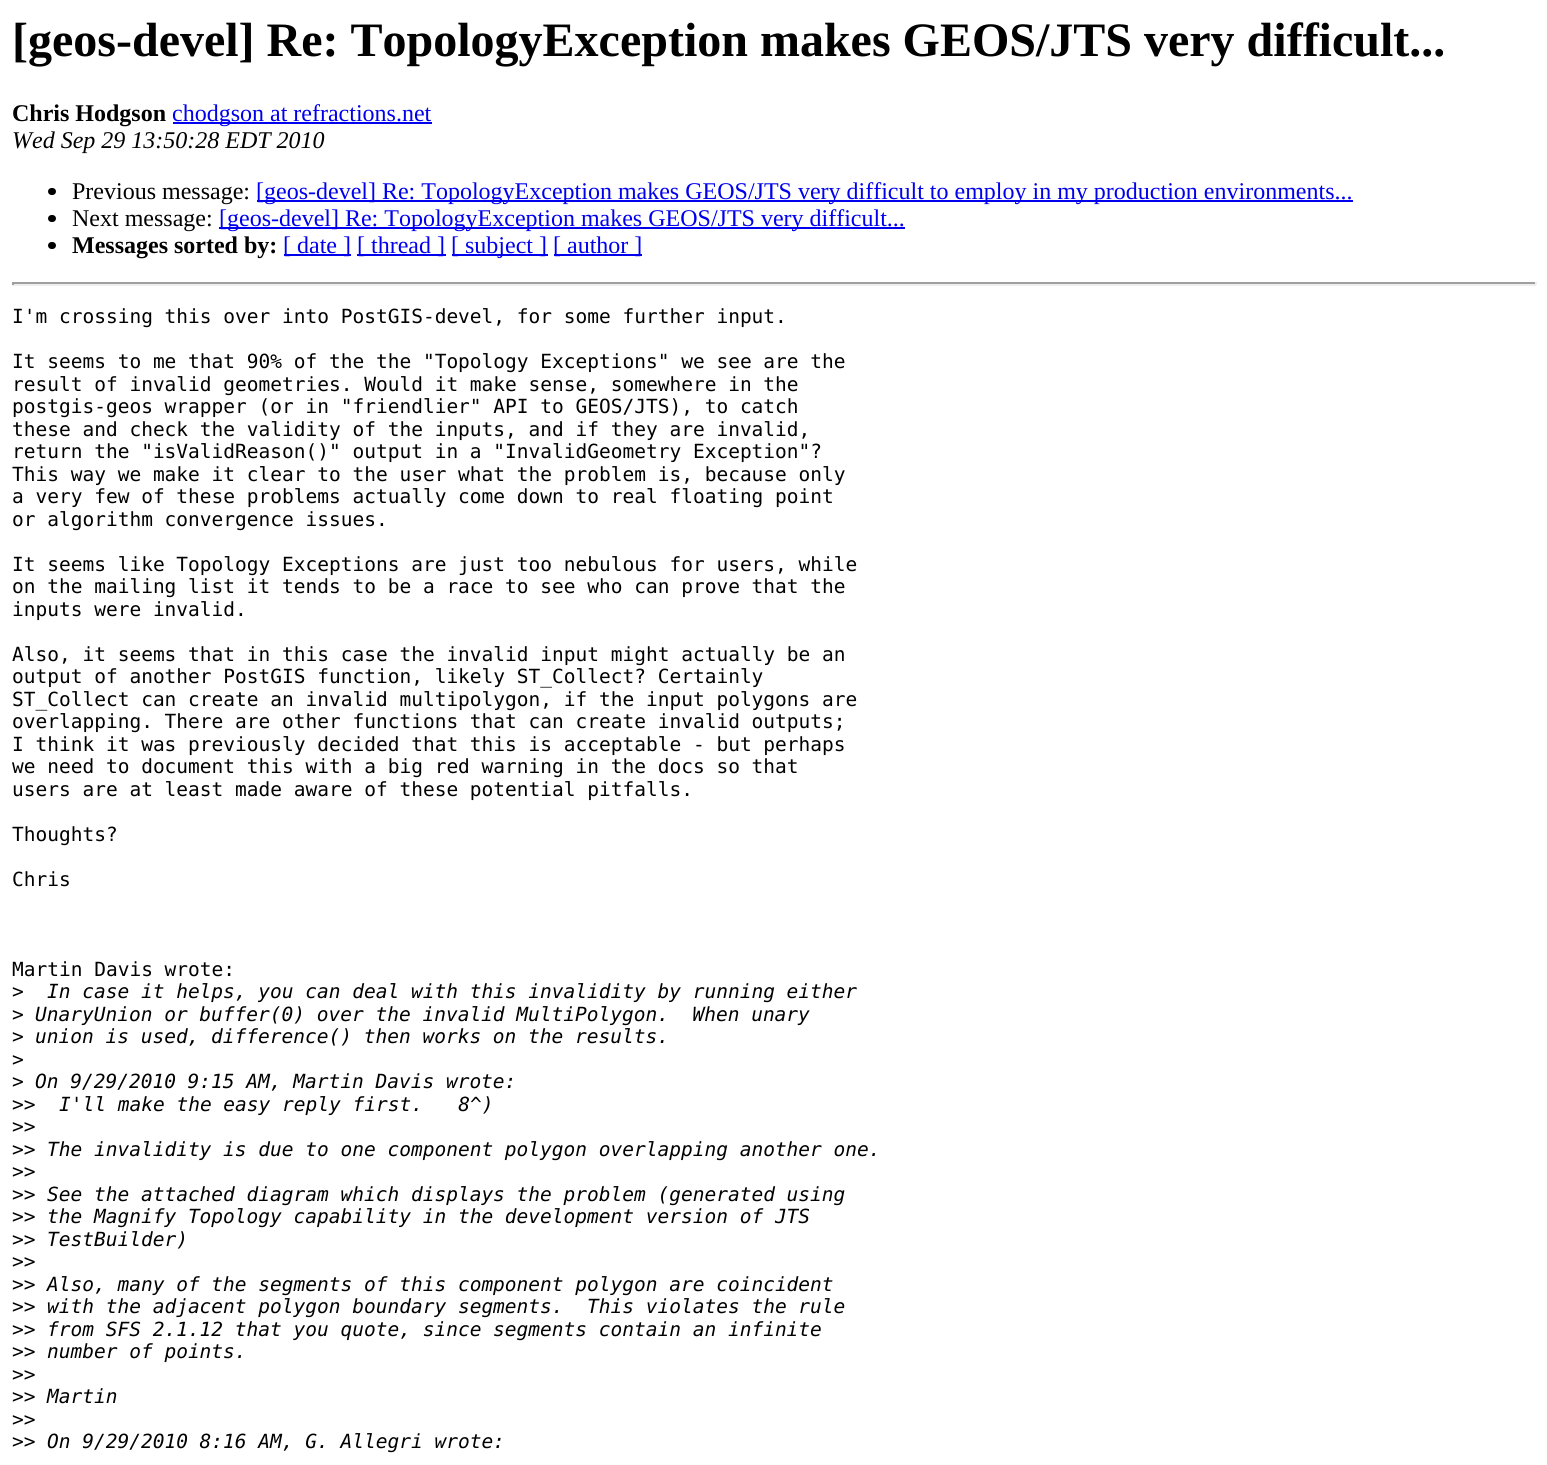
#include <cairo/cairo.h>
#include <math.h>
#include <stddef.h>


static void rounded_rect(cairo_t *cr, double x, double y, double w, double h, double r) {
  cairo_new_sub_path(cr);
  cairo_arc(cr, x + w - r, y + h - r, r, 0, M_PI / 2);
  cairo_arc(cr, x + r, y + h - r, r, M_PI / 2, M_PI);
  cairo_arc(cr, x + r, y + r, r, M_PI, 1.5 * M_PI);
  cairo_arc(cr, x + w - r, y + r, r, 1.5 * M_PI, 2 * M_PI);
  cairo_close_path(cr);
}

static void draw(cairo_t *cr) {
  cairo_set_source_rgb(cr, 1, 1, 1);
  cairo_paint(cr);
  cairo_set_source_rgb(cr, 0, 0, 238 / 255.0);
  cairo_rectangle(cr, 173, 122, 259, 2);
  cairo_fill(cr);
  cairo_set_source_rgb(cr, 0, 0, 0);
  rounded_rect(cr, 48, 188, 8, 7, 3.5);
  cairo_fill(cr);
  cairo_set_source_rgb(cr, 0, 0, 238 / 255.0);
  cairo_rectangle(cr, 257, 200, 1096, 2);
  cairo_fill(cr);
  cairo_set_source_rgb(cr, 0, 0, 0);
  rounded_rect(cr, 48, 215, 8, 7, 3.5);
  cairo_fill(cr);
  cairo_set_source_rgb(cr, 0, 0, 238 / 255.0);
  cairo_rectangle(cr, 219, 227, 686, 2);
  cairo_fill(cr);
  cairo_set_source_rgb(cr, 0, 0, 0);
  rounded_rect(cr, 48, 242, 8, 7, 3.5);
  cairo_fill(cr);
  cairo_set_source_rgb(cr, 0, 0, 238 / 255.0);
  cairo_rectangle(cr, 284, 254, 67, 2);
  cairo_fill(cr);
  cairo_rectangle(cr, 357, 254, 89, 2);
  cairo_fill(cr);
  cairo_rectangle(cr, 452, 254, 96, 2);
  cairo_fill(cr);
  cairo_rectangle(cr, 554, 254, 88, 2);
  cairo_fill(cr);
  cairo_set_source_rgb(cr, 159 / 255.0, 159 / 255.0, 159 / 255.0);
  cairo_rectangle(cr, 12, 282, 1524, 2);
  cairo_fill(cr);
  cairo_set_source_rgb(cr, 238 / 255.0, 238 / 255.0, 238 / 255.0);
  cairo_rectangle(cr, 1535, 282, 2, 3);
  cairo_fill(cr);
  cairo_rectangle(cr, 12, 284, 1524, 2);
  cairo_fill(cr);
  cairo_set_source_rgb(cr, 159 / 255.0, 159 / 255.0, 159 / 255.0);
  cairo_rectangle(cr, 12, 282, 2, 3);
  cairo_fill(cr);
  cairo_select_font_face(cr, "Liberation Serif", CAIRO_FONT_SLANT_NORMAL, CAIRO_FONT_WEIGHT_BOLD);
  cairo_set_font_size(cr, 48);
  cairo_set_source_rgb(cr, 0, 0, 0);
  cairo_move_to(cr, 12, 56);
  cairo_show_text(cr, "[geos-devel] Re: TopologyException makes GEOS/JTS very difficult...");
  cairo_set_font_size(cr, 24);
  cairo_move_to(cr, 12, 121);
  cairo_show_text(cr, "Chris Hodgson");
  cairo_select_font_face(cr, "Liberation Serif", CAIRO_FONT_SLANT_NORMAL, CAIRO_FONT_WEIGHT_NORMAL);
  cairo_set_source_rgb(cr, 0, 0, 238 / 255.0);
  cairo_move_to(cr, 172, 121);
  cairo_show_text(cr, "chodgson at refractions.net");
  cairo_select_font_face(cr, "Liberation Serif", CAIRO_FONT_SLANT_ITALIC, CAIRO_FONT_WEIGHT_NORMAL);
  cairo_set_source_rgb(cr, 0, 0, 0);
  cairo_move_to(cr, 12, 148);
  cairo_show_text(cr, "Wed Sep 29 13:50:28 EDT 2010");
  cairo_select_font_face(cr, "Liberation Serif", CAIRO_FONT_SLANT_NORMAL, CAIRO_FONT_WEIGHT_NORMAL);
  cairo_move_to(cr, 72, 199);
  cairo_show_text(cr, "Previous message:");
  cairo_set_source_rgb(cr, 0, 0, 238 / 255.0);
  cairo_move_to(cr, 256, 199);
  cairo_show_text(cr, "[geos-devel] Re: TopologyException makes GEOS/JTS very difficult to employ in my production environments...");
  cairo_set_source_rgb(cr, 0, 0, 0);
  cairo_move_to(cr, 72, 226);
  cairo_show_text(cr, "Next message:");
  cairo_set_source_rgb(cr, 0, 0, 238 / 255.0);
  cairo_move_to(cr, 219, 226);
  cairo_show_text(cr, "[geos-devel] Re: TopologyException makes GEOS/JTS very difficult...");
  cairo_select_font_face(cr, "Liberation Serif", CAIRO_FONT_SLANT_NORMAL, CAIRO_FONT_WEIGHT_BOLD);
  cairo_set_source_rgb(cr, 0, 0, 0);
  cairo_move_to(cr, 72, 253);
  cairo_show_text(cr, "Messages sorted by:");
  cairo_select_font_face(cr, "Liberation Serif", CAIRO_FONT_SLANT_NORMAL, CAIRO_FONT_WEIGHT_NORMAL);
  cairo_set_source_rgb(cr, 0, 0, 238 / 255.0);
  cairo_move_to(cr, 283, 253);
  cairo_show_text(cr, "[ date ]");
  cairo_move_to(cr, 357, 253);
  cairo_show_text(cr, "[ thread ]");
  cairo_move_to(cr, 451, 253);
  cairo_show_text(cr, "[ subject ]");
  cairo_move_to(cr, 553, 253);
  cairo_show_text(cr, "[ author ]");
  cairo_select_font_face(cr, "DejaVu Sans Mono", CAIRO_FONT_SLANT_NORMAL, CAIRO_FONT_WEIGHT_NORMAL);
  cairo_set_font_size(cr, 19.5);
  cairo_set_source_rgb(cr, 0, 0, 0);
  cairo_move_to(cr, 12, 323);
  cairo_show_text(cr, "I'm crossing this over into PostGIS-devel, for some further input.");
  cairo_move_to(cr, 12, 368);
  cairo_show_text(cr, "It seems to me that 90% of the the \"Topology Exceptions\" we see are the");
  cairo_move_to(cr, 12, 391);
  cairo_show_text(cr, "result of invalid geometries. Would it make sense, somewhere in the");
  cairo_move_to(cr, 12, 413);
  cairo_show_text(cr, "postgis-geos wrapper (or in \"friendlier\" API to GEOS/JTS), to catch");
  cairo_move_to(cr, 12, 436);
  cairo_show_text(cr, "these and check the validity of the inputs, and if they are invalid,");
  cairo_move_to(cr, 12, 458);
  cairo_show_text(cr, "return the \"isValidReason()\" output in a \"InvalidGeometry Exception\"?");
  cairo_move_to(cr, 12, 481);
  cairo_show_text(cr, "This way we make it clear to the user what the problem is, because only");
  cairo_move_to(cr, 12, 503);
  cairo_show_text(cr, "a very few of these problems actually come down to real floating point");
  cairo_move_to(cr, 12, 526);
  cairo_show_text(cr, "or algorithm convergence issues.");
  cairo_move_to(cr, 12, 571);
  cairo_show_text(cr, "It seems like Topology Exceptions are just too nebulous for users, while");
  cairo_move_to(cr, 12, 593);
  cairo_show_text(cr, "on the mailing list it tends to be a race to see who can prove that the");
  cairo_move_to(cr, 12, 616);
  cairo_show_text(cr, "inputs were invalid.");
  cairo_move_to(cr, 12, 661);
  cairo_show_text(cr, "Also, it seems that in this case the invalid input might actually be an");
  cairo_move_to(cr, 12, 683);
  cairo_show_text(cr, "output of another PostGIS function, likely ST_Collect? Certainly");
  cairo_move_to(cr, 12, 706);
  cairo_show_text(cr, "ST_Collect can create an invalid multipolygon, if the input polygons are");
  cairo_move_to(cr, 12, 728);
  cairo_show_text(cr, "overlapping. There are other functions that can create invalid outputs;");
  cairo_move_to(cr, 12, 751);
  cairo_show_text(cr, "I think it was previously decided that this is acceptable - but perhaps");
  cairo_move_to(cr, 12, 773);
  cairo_show_text(cr, "we need to document this with a big red warning in the docs so that");
  cairo_move_to(cr, 12, 796);
  cairo_show_text(cr, "users are at least made aware of these potential pitfalls.");
  cairo_move_to(cr, 12, 841);
  cairo_show_text(cr, "Thoughts?");
  cairo_move_to(cr, 12, 886);
  cairo_show_text(cr, "Chris");
  cairo_move_to(cr, 12, 976);
  cairo_show_text(cr, "Martin Davis wrote:");
  cairo_move_to(cr, 12, 998);
  cairo_show_text(cr, ">");
  cairo_select_font_face(cr, "DejaVu Sans Mono", CAIRO_FONT_SLANT_ITALIC, CAIRO_FONT_WEIGHT_NORMAL);
  cairo_move_to(cr, 47, 998);
  cairo_show_text(cr, "In case it helps, you can deal with this invalidity by running either");
  cairo_select_font_face(cr, "DejaVu Sans Mono", CAIRO_FONT_SLANT_NORMAL, CAIRO_FONT_WEIGHT_NORMAL);
  cairo_move_to(cr, 12, 1021);
  cairo_show_text(cr, ">");
  cairo_select_font_face(cr, "DejaVu Sans Mono", CAIRO_FONT_SLANT_ITALIC, CAIRO_FONT_WEIGHT_NORMAL);
  cairo_move_to(cr, 35, 1021);
  cairo_show_text(cr, "UnaryUnion or buffer(0) over the invalid MultiPolygon.  When unary");
  cairo_select_font_face(cr, "DejaVu Sans Mono", CAIRO_FONT_SLANT_NORMAL, CAIRO_FONT_WEIGHT_NORMAL);
  cairo_move_to(cr, 12, 1043);
  cairo_show_text(cr, ">");
  cairo_select_font_face(cr, "DejaVu Sans Mono", CAIRO_FONT_SLANT_ITALIC, CAIRO_FONT_WEIGHT_NORMAL);
  cairo_move_to(cr, 35, 1043);
  cairo_show_text(cr, "union is used, difference() then works on the results.");
  cairo_select_font_face(cr, "DejaVu Sans Mono", CAIRO_FONT_SLANT_NORMAL, CAIRO_FONT_WEIGHT_NORMAL);
  cairo_move_to(cr, 12, 1066);
  cairo_show_text(cr, ">");
  cairo_move_to(cr, 12, 1088);
  cairo_show_text(cr, ">");
  cairo_select_font_face(cr, "DejaVu Sans Mono", CAIRO_FONT_SLANT_ITALIC, CAIRO_FONT_WEIGHT_NORMAL);
  cairo_move_to(cr, 35, 1088);
  cairo_show_text(cr, "On 9/29/2010 9:15 AM, Martin Davis wrote:");
  cairo_select_font_face(cr, "DejaVu Sans Mono", CAIRO_FONT_SLANT_NORMAL, CAIRO_FONT_WEIGHT_NORMAL);
  cairo_move_to(cr, 12, 1111);
  cairo_show_text(cr, ">>");
  cairo_select_font_face(cr, "DejaVu Sans Mono", CAIRO_FONT_SLANT_ITALIC, CAIRO_FONT_WEIGHT_NORMAL);
  cairo_move_to(cr, 59, 1111);
  cairo_show_text(cr, "I'll make the easy reply first.   8^)");
  cairo_select_font_face(cr, "DejaVu Sans Mono", CAIRO_FONT_SLANT_NORMAL, CAIRO_FONT_WEIGHT_NORMAL);
  cairo_move_to(cr, 12, 1133);
  cairo_show_text(cr, ">>");
  cairo_move_to(cr, 12, 1156);
  cairo_show_text(cr, ">>");
  cairo_select_font_face(cr, "DejaVu Sans Mono", CAIRO_FONT_SLANT_ITALIC, CAIRO_FONT_WEIGHT_NORMAL);
  cairo_move_to(cr, 47, 1156);
  cairo_show_text(cr, "The invalidity is due to one component polygon overlapping another one.");
  cairo_select_font_face(cr, "DejaVu Sans Mono", CAIRO_FONT_SLANT_NORMAL, CAIRO_FONT_WEIGHT_NORMAL);
  cairo_move_to(cr, 12, 1178);
  cairo_show_text(cr, ">>");
  cairo_move_to(cr, 12, 1201);
  cairo_show_text(cr, ">>");
  cairo_select_font_face(cr, "DejaVu Sans Mono", CAIRO_FONT_SLANT_ITALIC, CAIRO_FONT_WEIGHT_NORMAL);
  cairo_move_to(cr, 47, 1201);
  cairo_show_text(cr, "See the attached diagram which displays the problem (generated using");
  cairo_select_font_face(cr, "DejaVu Sans Mono", CAIRO_FONT_SLANT_NORMAL, CAIRO_FONT_WEIGHT_NORMAL);
  cairo_move_to(cr, 12, 1223);
  cairo_show_text(cr, ">>");
  cairo_select_font_face(cr, "DejaVu Sans Mono", CAIRO_FONT_SLANT_ITALIC, CAIRO_FONT_WEIGHT_NORMAL);
  cairo_move_to(cr, 47, 1223);
  cairo_show_text(cr, "the Magnify Topology capability in the development version of JTS");
  cairo_select_font_face(cr, "DejaVu Sans Mono", CAIRO_FONT_SLANT_NORMAL, CAIRO_FONT_WEIGHT_NORMAL);
  cairo_move_to(cr, 12, 1246);
  cairo_show_text(cr, ">>");
  cairo_select_font_face(cr, "DejaVu Sans Mono", CAIRO_FONT_SLANT_ITALIC, CAIRO_FONT_WEIGHT_NORMAL);
  cairo_move_to(cr, 47, 1246);
  cairo_show_text(cr, "TestBuilder)");
  cairo_select_font_face(cr, "DejaVu Sans Mono", CAIRO_FONT_SLANT_NORMAL, CAIRO_FONT_WEIGHT_NORMAL);
  cairo_move_to(cr, 12, 1268);
  cairo_show_text(cr, ">>");
  cairo_move_to(cr, 12, 1291);
  cairo_show_text(cr, ">>");
  cairo_select_font_face(cr, "DejaVu Sans Mono", CAIRO_FONT_SLANT_ITALIC, CAIRO_FONT_WEIGHT_NORMAL);
  cairo_move_to(cr, 47, 1291);
  cairo_show_text(cr, "Also, many of the segments of this component polygon are coincident");
  cairo_select_font_face(cr, "DejaVu Sans Mono", CAIRO_FONT_SLANT_NORMAL, CAIRO_FONT_WEIGHT_NORMAL);
  cairo_move_to(cr, 12, 1313);
  cairo_show_text(cr, ">>");
  cairo_select_font_face(cr, "DejaVu Sans Mono", CAIRO_FONT_SLANT_ITALIC, CAIRO_FONT_WEIGHT_NORMAL);
  cairo_move_to(cr, 47, 1313);
  cairo_show_text(cr, "with the adjacent polygon boundary segments.  This violates the rule");
  cairo_select_font_face(cr, "DejaVu Sans Mono", CAIRO_FONT_SLANT_NORMAL, CAIRO_FONT_WEIGHT_NORMAL);
  cairo_move_to(cr, 12, 1336);
  cairo_show_text(cr, ">>");
  cairo_select_font_face(cr, "DejaVu Sans Mono", CAIRO_FONT_SLANT_ITALIC, CAIRO_FONT_WEIGHT_NORMAL);
  cairo_move_to(cr, 47, 1336);
  cairo_show_text(cr, "from SFS 2.1.12 that you quote, since segments contain an infinite");
  cairo_select_font_face(cr, "DejaVu Sans Mono", CAIRO_FONT_SLANT_NORMAL, CAIRO_FONT_WEIGHT_NORMAL);
  cairo_move_to(cr, 12, 1358);
  cairo_show_text(cr, ">>");
  cairo_select_font_face(cr, "DejaVu Sans Mono", CAIRO_FONT_SLANT_ITALIC, CAIRO_FONT_WEIGHT_NORMAL);
  cairo_move_to(cr, 47, 1358);
  cairo_show_text(cr, "number of points.");
  cairo_select_font_face(cr, "DejaVu Sans Mono", CAIRO_FONT_SLANT_NORMAL, CAIRO_FONT_WEIGHT_NORMAL);
  cairo_move_to(cr, 12, 1381);
  cairo_show_text(cr, ">>");
  cairo_move_to(cr, 12, 1403);
  cairo_show_text(cr, ">>");
  cairo_select_font_face(cr, "DejaVu Sans Mono", CAIRO_FONT_SLANT_ITALIC, CAIRO_FONT_WEIGHT_NORMAL);
  cairo_move_to(cr, 47, 1403);
  cairo_show_text(cr, "Martin");
  cairo_select_font_face(cr, "DejaVu Sans Mono", CAIRO_FONT_SLANT_NORMAL, CAIRO_FONT_WEIGHT_NORMAL);
  cairo_move_to(cr, 12, 1426);
  cairo_show_text(cr, ">>");
  cairo_move_to(cr, 12, 1448);
  cairo_show_text(cr, ">>");
  cairo_select_font_face(cr, "DejaVu Sans Mono", CAIRO_FONT_SLANT_ITALIC, CAIRO_FONT_WEIGHT_NORMAL);
  cairo_move_to(cr, 47, 1448);
  cairo_show_text(cr, "On 9/29/2010 8:16 AM, G. Allegri wrote:");
}

int main(void) {
  cairo_surface_t *surface = cairo_image_surface_create(CAIRO_FORMAT_RGB24, 1547, 1465);
  cairo_t *cr = cairo_create(surface);
  cairo_font_options_t *options = cairo_font_options_create();
  cairo_font_options_set_hint_metrics(options, CAIRO_HINT_METRICS_OFF);
  cairo_font_options_set_hint_style(options, CAIRO_HINT_STYLE_NONE);
  cairo_set_font_options(cr, options);
  cairo_set_miter_limit(cr, 4);
  draw(cr);
  cairo_surface_write_to_png(surface, "out.png");
  cairo_font_options_destroy(options);
  cairo_destroy(cr);
  cairo_surface_destroy(surface);
  return 0;
}
